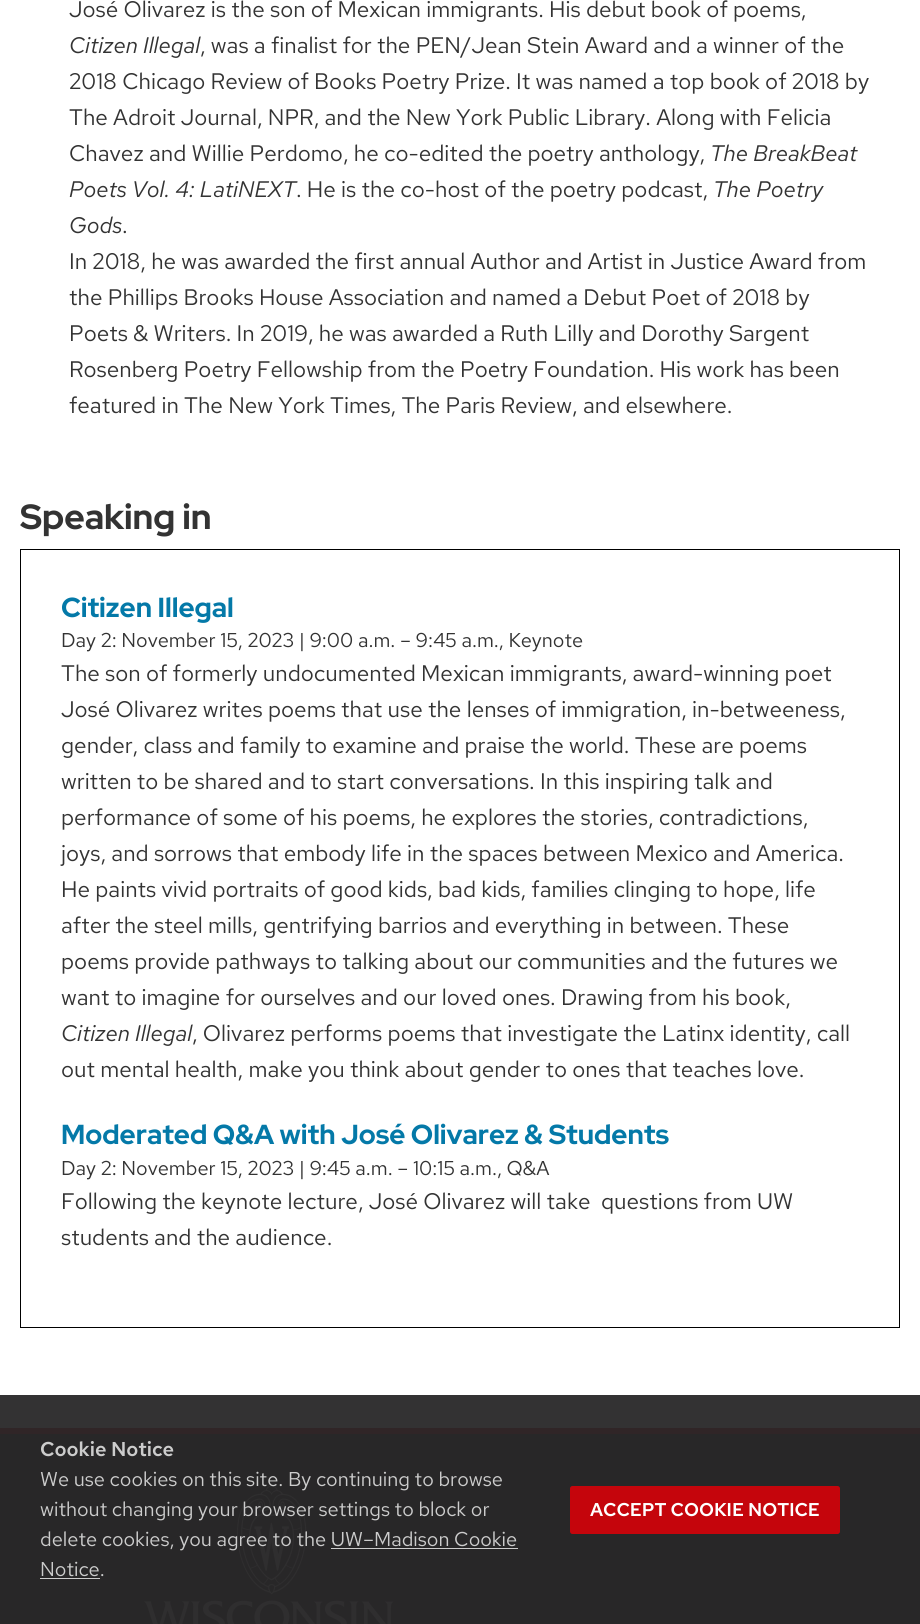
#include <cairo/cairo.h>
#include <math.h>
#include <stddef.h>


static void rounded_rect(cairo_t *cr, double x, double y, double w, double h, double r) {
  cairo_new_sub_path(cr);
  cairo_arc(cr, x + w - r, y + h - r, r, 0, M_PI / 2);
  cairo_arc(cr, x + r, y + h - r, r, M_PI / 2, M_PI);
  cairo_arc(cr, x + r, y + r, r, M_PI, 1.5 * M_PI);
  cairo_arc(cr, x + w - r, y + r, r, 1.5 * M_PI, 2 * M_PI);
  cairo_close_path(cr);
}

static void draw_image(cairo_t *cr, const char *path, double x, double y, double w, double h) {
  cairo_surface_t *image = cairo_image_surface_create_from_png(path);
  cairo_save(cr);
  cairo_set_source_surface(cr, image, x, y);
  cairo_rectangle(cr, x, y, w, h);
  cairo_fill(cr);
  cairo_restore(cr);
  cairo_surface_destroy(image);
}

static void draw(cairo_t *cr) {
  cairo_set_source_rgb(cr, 1, 1, 1);
  cairo_paint(cr);
  cairo_set_source_rgb(cr, 51 / 255.0, 50 / 255.0, 51 / 255.0);
  cairo_rectangle(cr, 0, 1395, 920, 33);
  cairo_fill(cr);
  cairo_rectangle(cr, 20.5, 549.5, 879, 778);
  cairo_set_source_rgb(cr, 0, 0, 0);
  cairo_set_line_width(cr, 1);
  cairo_stroke(cr);
  cairo_set_source_rgb(cr, 40 / 255.0, 39 / 255.0, 40 / 255.0);
  cairo_rectangle(cr, 0, 1434, 920, 190);
  cairo_fill(cr);
  cairo_set_source_rgb(cr, 48 / 255.0, 37 / 255.0, 39 / 255.0);
  cairo_rectangle(cr, 0, 1428, 920, 6);
  cairo_fill(cr);
  draw_image(cr, "images/1.png", 144, 1485, 250, 139);
  cairo_set_source_rgb(cr, 204 / 255.0, 204 / 255.0, 204 / 255.0);
  cairo_rectangle(cr, 331, 1548, 187, 1);
  cairo_fill(cr);
  cairo_rectangle(cr, 40, 1578, 60, 1);
  cairo_fill(cr);
  cairo_set_source_rgb(cr, 197 / 255.0, 5 / 255.0, 12 / 255.0);
  rounded_rect(cr, 570, 1486, 270, 48, 2.5);
  cairo_fill(cr);
  cairo_select_font_face(cr, "Red Hat Text", CAIRO_FONT_SLANT_NORMAL, CAIRO_FONT_WEIGHT_NORMAL);
  cairo_set_font_size(cr, 22.5);
  cairo_set_source_rgb(cr, 51 / 255.0, 51 / 255.0, 51 / 255.0);
  cairo_move_to(cr, 69, 17);
  cairo_show_text(cr, "José Olivarez is the son of Mexican immigrants. His debut book of poems,");
  cairo_select_font_face(cr, "Red Hat Text", CAIRO_FONT_SLANT_ITALIC, CAIRO_FONT_WEIGHT_NORMAL);
  cairo_move_to(cr, 69, 53);
  cairo_show_text(cr, "Citizen Illegal");
  cairo_select_font_face(cr, "Red Hat Text", CAIRO_FONT_SLANT_NORMAL, CAIRO_FONT_WEIGHT_NORMAL);
  cairo_move_to(cr, 200, 53);
  cairo_show_text(cr, ", was a finalist for the PEN/Jean Stein Award and a winner of the");
  cairo_move_to(cr, 69, 89);
  cairo_show_text(cr, "2018 Chicago Review of Books Poetry Prize. It was named a top book of 2018 by");
  cairo_move_to(cr, 69, 125);
  cairo_show_text(cr, "The Adroit Journal, NPR, and the New York Public Library. Along with Felicia");
  cairo_move_to(cr, 69, 161);
  cairo_show_text(cr, "Chavez and Willie Perdomo, he co-edited the poetry anthology,");
  cairo_select_font_face(cr, "Red Hat Text", CAIRO_FONT_SLANT_ITALIC, CAIRO_FONT_WEIGHT_NORMAL);
  cairo_move_to(cr, 710, 161);
  cairo_show_text(cr, "The BreakBeat");
  cairo_move_to(cr, 69, 197);
  cairo_show_text(cr, "Poets Vol. 4: LatiNEXT");
  cairo_select_font_face(cr, "Red Hat Text", CAIRO_FONT_SLANT_NORMAL, CAIRO_FONT_WEIGHT_NORMAL);
  cairo_move_to(cr, 296, 197);
  cairo_show_text(cr, ". He is the co-host of the poetry podcast,");
  cairo_select_font_face(cr, "Red Hat Text", CAIRO_FONT_SLANT_ITALIC, CAIRO_FONT_WEIGHT_NORMAL);
  cairo_move_to(cr, 713, 197);
  cairo_show_text(cr, "The Poetry");
  cairo_move_to(cr, 69, 233);
  cairo_show_text(cr, "Gods");
  cairo_select_font_face(cr, "Red Hat Text", CAIRO_FONT_SLANT_NORMAL, CAIRO_FONT_WEIGHT_NORMAL);
  cairo_move_to(cr, 122, 233);
  cairo_show_text(cr, ".");
  cairo_move_to(cr, 69, 269);
  cairo_show_text(cr, "In 2018, he was awarded the first annual Author and Artist in Justice Award from");
  cairo_move_to(cr, 69, 305);
  cairo_show_text(cr, "the Phillips Brooks House Association and named a Debut Poet of 2018 by");
  cairo_move_to(cr, 69, 341);
  cairo_show_text(cr, "Poets & Writers. In 2019, he was awarded a Ruth Lilly and Dorothy Sargent");
  cairo_move_to(cr, 69, 377);
  cairo_show_text(cr, "Rosenberg Poetry Fellowship from the Poetry Foundation. His work has been");
  cairo_move_to(cr, 69, 413);
  cairo_show_text(cr, "featured in The New York Times, The Paris Review, and elsewhere.");
  cairo_select_font_face(cr, "Red Hat Display", CAIRO_FONT_SLANT_NORMAL, CAIRO_FONT_WEIGHT_BOLD);
  cairo_set_font_size(cr, 35);
  cairo_move_to(cr, 20, 529);
  cairo_show_text(cr, "Speaking in");
  cairo_set_font_size(cr, 27.5);
  cairo_set_source_rgb(cr, 4 / 255.0, 121 / 255.0, 168 / 255.0);
  cairo_move_to(cr, 61, 617);
  cairo_show_text(cr, "Citizen Illegal");
  cairo_select_font_face(cr, "Red Hat Text", CAIRO_FONT_SLANT_NORMAL, CAIRO_FONT_WEIGHT_NORMAL);
  cairo_set_font_size(cr, 20);
  cairo_set_source_rgb(cr, 51 / 255.0, 51 / 255.0, 51 / 255.0);
  cairo_move_to(cr, 61, 647);
  cairo_show_text(cr, "Day 2: November 15, 2023 | 9:00 a.m. – 9:45 a.m., Keynote");
  cairo_set_font_size(cr, 22.5);
  cairo_move_to(cr, 61, 681);
  cairo_show_text(cr, "The son of formerly undocumented Mexican immigrants, award-winning poet");
  cairo_move_to(cr, 61, 717);
  cairo_show_text(cr, "José Olivarez writes poems that use the lenses of immigration, in-betweeness,");
  cairo_move_to(cr, 61, 753);
  cairo_show_text(cr, "gender, class and family to examine and praise the world. These are poems");
  cairo_move_to(cr, 61, 789);
  cairo_show_text(cr, "written to be shared and to start conversations. In this inspiring talk and");
  cairo_move_to(cr, 61, 825);
  cairo_show_text(cr, "performance of some of his poems, he explores the stories, contradictions,");
  cairo_move_to(cr, 61, 861);
  cairo_show_text(cr, "joys, and sorrows that embody life in the spaces between Mexico and America.");
  cairo_move_to(cr, 61, 897);
  cairo_show_text(cr, "He paints vivid portraits of good kids, bad kids, families clinging to hope, life");
  cairo_move_to(cr, 61, 933);
  cairo_show_text(cr, "after the steel mills, gentrifying barrios and everything in between. These");
  cairo_move_to(cr, 61, 969);
  cairo_show_text(cr, "poems provide pathways to talking about our communities and the futures we");
  cairo_move_to(cr, 61, 1005);
  cairo_show_text(cr, "want to imagine for ourselves and our loved ones. Drawing from his book,");
  cairo_select_font_face(cr, "Red Hat Text", CAIRO_FONT_SLANT_ITALIC, CAIRO_FONT_WEIGHT_NORMAL);
  cairo_move_to(cr, 61, 1041);
  cairo_show_text(cr, "Citizen Illegal");
  cairo_select_font_face(cr, "Red Hat Text", CAIRO_FONT_SLANT_NORMAL, CAIRO_FONT_WEIGHT_NORMAL);
  cairo_move_to(cr, 192, 1041);
  cairo_show_text(cr, ", Olivarez performs poems that investigate the Latinx identity, call");
  cairo_move_to(cr, 61, 1077);
  cairo_show_text(cr, "out mental health, make you think about gender to ones that teaches love.");
  cairo_select_font_face(cr, "Red Hat Display", CAIRO_FONT_SLANT_NORMAL, CAIRO_FONT_WEIGHT_BOLD);
  cairo_set_font_size(cr, 27.5);
  cairo_set_source_rgb(cr, 4 / 255.0, 121 / 255.0, 168 / 255.0);
  cairo_move_to(cr, 61, 1144);
  cairo_show_text(cr, "Moderated Q&A with José Olivarez & Students");
  cairo_select_font_face(cr, "Red Hat Text", CAIRO_FONT_SLANT_NORMAL, CAIRO_FONT_WEIGHT_NORMAL);
  cairo_set_font_size(cr, 20);
  cairo_set_source_rgb(cr, 51 / 255.0, 51 / 255.0, 51 / 255.0);
  cairo_move_to(cr, 61, 1175);
  cairo_show_text(cr, "Day 2: November 15, 2023 | 9:45 a.m. – 10:15 a.m., Q&A");
  cairo_set_font_size(cr, 22.5);
  cairo_move_to(cr, 61, 1209);
  cairo_show_text(cr, "Following the keynote lecture, José Olivarez will take  questions from UW");
  cairo_move_to(cr, 61, 1245);
  cairo_show_text(cr, "students and the audience.");
  cairo_select_font_face(cr, "Red Hat Text SemiBold", CAIRO_FONT_SLANT_NORMAL, CAIRO_FONT_WEIGHT_NORMAL);
  cairo_set_font_size(cr, 20);
  cairo_set_source_rgb(cr, 204 / 255.0, 204 / 255.0, 204 / 255.0);
  cairo_move_to(cr, 40, 1456);
  cairo_show_text(cr, "Cookie Notice");
  cairo_select_font_face(cr, "Red Hat Text", CAIRO_FONT_SLANT_NORMAL, CAIRO_FONT_WEIGHT_NORMAL);
  cairo_move_to(cr, 40, 1486);
  cairo_show_text(cr, "We use cookies on this site. By continuing to browse");
  cairo_move_to(cr, 40, 1516);
  cairo_show_text(cr, "without changing your browser settings to block or");
  cairo_move_to(cr, 40, 1546);
  cairo_show_text(cr, "delete cookies, you agree to the UW–Madison Cookie");
  cairo_move_to(cr, 40, 1576);
  cairo_show_text(cr, "Notice.");
  cairo_select_font_face(cr, "Red Hat Text SemiBold", CAIRO_FONT_SLANT_NORMAL, CAIRO_FONT_WEIGHT_NORMAL);
  cairo_set_font_size(cr, 18.5);
  cairo_set_source_rgb(cr, 1, 1, 1);
  cairo_move_to(cr, 590, 1516);
  cairo_show_text(cr, "ACCEPT COOKIE NOTICE");
}

int main(void) {
  cairo_surface_t *surface = cairo_image_surface_create(CAIRO_FORMAT_RGB24, 920, 1624);
  cairo_t *cr = cairo_create(surface);
  cairo_font_options_t *options = cairo_font_options_create();
  cairo_font_options_set_hint_metrics(options, CAIRO_HINT_METRICS_OFF);
  cairo_font_options_set_hint_style(options, CAIRO_HINT_STYLE_NONE);
  cairo_set_font_options(cr, options);
  cairo_set_miter_limit(cr, 4);
  draw(cr);
  cairo_surface_write_to_png(surface, "out.png");
  cairo_font_options_destroy(options);
  cairo_destroy(cr);
  cairo_surface_destroy(surface);
  return 0;
}
